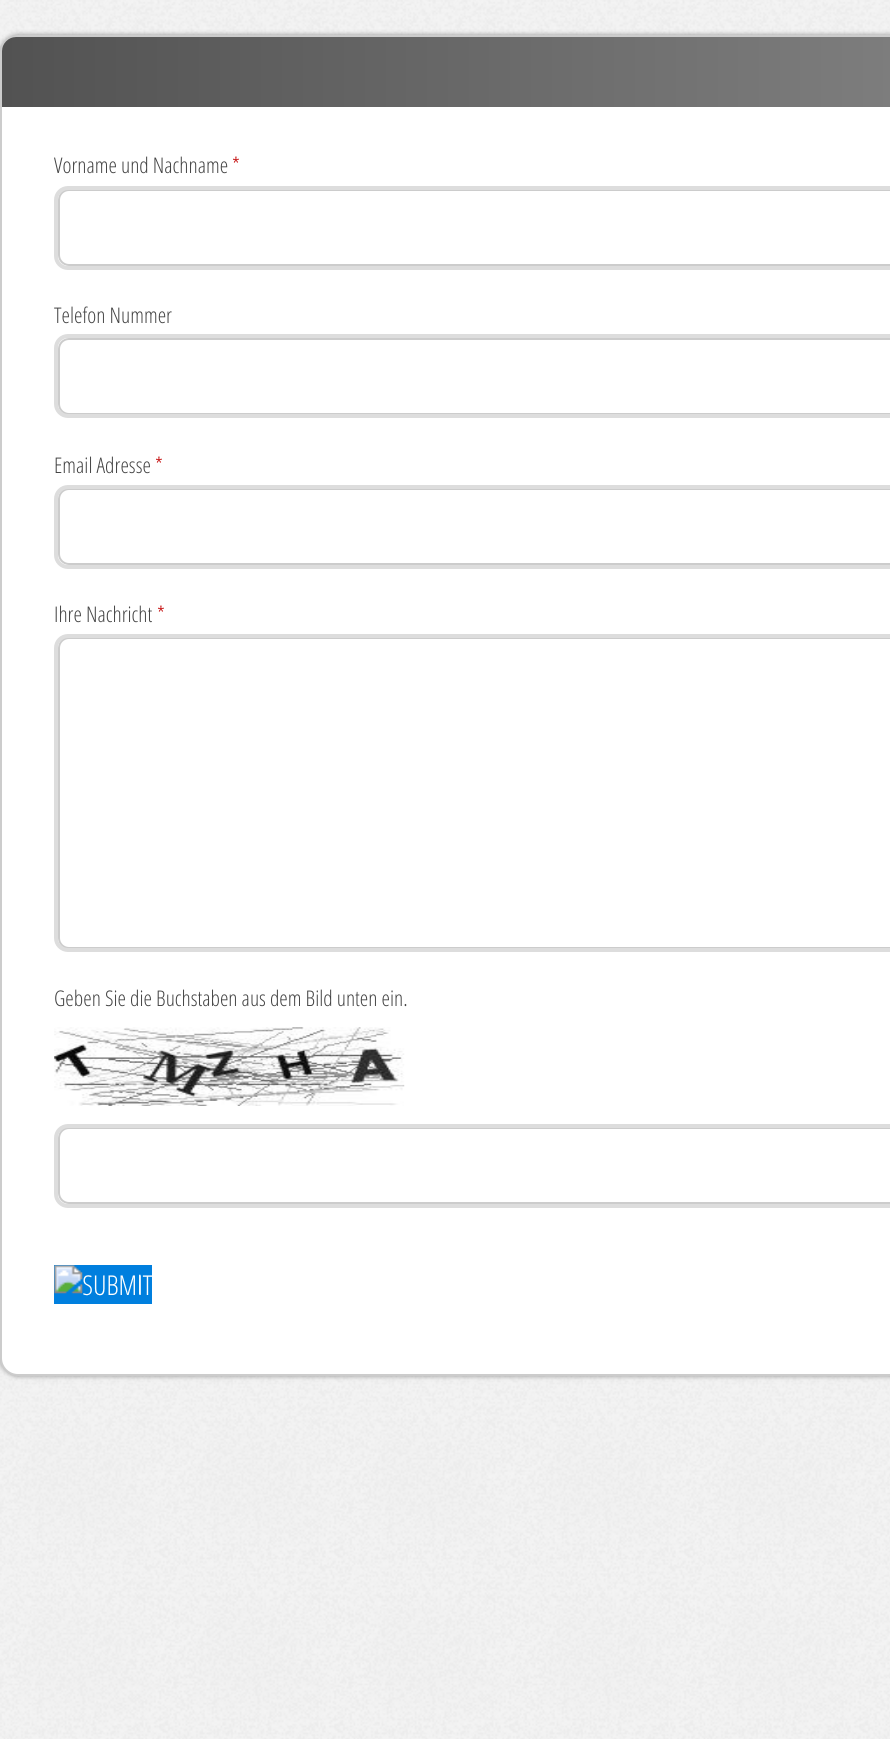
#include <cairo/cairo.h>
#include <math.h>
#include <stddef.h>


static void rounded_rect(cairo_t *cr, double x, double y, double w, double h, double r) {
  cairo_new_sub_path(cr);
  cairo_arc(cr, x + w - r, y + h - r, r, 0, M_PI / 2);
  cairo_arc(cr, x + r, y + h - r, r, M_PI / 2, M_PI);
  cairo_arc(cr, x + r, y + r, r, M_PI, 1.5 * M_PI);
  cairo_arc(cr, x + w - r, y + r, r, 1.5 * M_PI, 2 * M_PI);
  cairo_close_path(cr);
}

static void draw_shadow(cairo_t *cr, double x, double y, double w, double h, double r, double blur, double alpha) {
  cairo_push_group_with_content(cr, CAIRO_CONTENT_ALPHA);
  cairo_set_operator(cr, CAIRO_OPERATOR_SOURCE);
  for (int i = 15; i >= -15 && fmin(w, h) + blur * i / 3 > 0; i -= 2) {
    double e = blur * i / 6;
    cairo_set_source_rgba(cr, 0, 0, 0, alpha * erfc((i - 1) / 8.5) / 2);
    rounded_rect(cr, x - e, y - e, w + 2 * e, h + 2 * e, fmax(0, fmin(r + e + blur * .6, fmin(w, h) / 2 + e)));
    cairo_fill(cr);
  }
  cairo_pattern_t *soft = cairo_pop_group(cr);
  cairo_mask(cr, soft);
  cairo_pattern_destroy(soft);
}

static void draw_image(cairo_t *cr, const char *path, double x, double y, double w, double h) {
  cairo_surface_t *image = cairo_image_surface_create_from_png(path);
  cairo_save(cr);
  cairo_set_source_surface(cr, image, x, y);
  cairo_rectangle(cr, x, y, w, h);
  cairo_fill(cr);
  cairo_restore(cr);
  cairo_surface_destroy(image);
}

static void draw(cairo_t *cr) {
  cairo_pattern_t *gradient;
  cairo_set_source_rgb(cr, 1, 1, 1);
  cairo_paint(cr);
  draw_image(cr, "images/1.png", 0, 0, 890, 1739);
  cairo_set_source_rgb(cr, 0, 0, 0);
  draw_shadow(cr, 0, 35, 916, 1341, 18, 2.5, 0.4);
  cairo_set_source_rgb(cr, 1, 1, 1);
  rounded_rect(cr, 1, 36, 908, 1339, 17);
  cairo_fill_preserve(cr);
  cairo_set_source_rgb(cr, 204 / 255.0, 204 / 255.0, 204 / 255.0);
  cairo_stroke(cr);
  gradient = cairo_pattern_create_linear(1.8, 72, 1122, 72);
  cairo_pattern_add_color_stop_rgba(gradient, 0, 82 / 255.0, 82 / 255.0, 82 / 255.0, 1);
  cairo_pattern_add_color_stop_rgba(gradient, 1, 136 / 255.0, 136 / 255.0, 136 / 255.0, 1);
  cairo_set_source(cr, gradient);
  cairo_pattern_destroy(gradient);
  cairo_new_path(cr);
  cairo_move_to(cr, 16, 37);
  cairo_line_to(cr, 890, 37);
  cairo_curve_to(cr, 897.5, 37, 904, 43.5, 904, 51);
  cairo_line_to(cr, 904, 107);
  cairo_line_to(cr, 2, 107);
  cairo_line_to(cr, 2, 51);
  cairo_curve_to(cr, 2, 43.5, 8.5, 37, 16, 37);
  cairo_close_path(cr);
  cairo_fill(cr);
  rounded_rect(cr, 59, 190, 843, 75, 10);
  cairo_set_source_rgb(cr, 204 / 255.0, 204 / 255.0, 204 / 255.0);
  cairo_stroke(cr);
  rounded_rect(cr, 56, 188, 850, 80, 12);
  cairo_set_source_rgb(cr, 221 / 255.0, 221 / 255.0, 221 / 255.0);
  cairo_set_line_width(cr, 4);
  cairo_stroke(cr);
  rounded_rect(cr, 59, 339, 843, 75, 10);
  cairo_set_source_rgb(cr, 204 / 255.0, 204 / 255.0, 204 / 255.0);
  cairo_set_line_width(cr, 2);
  cairo_stroke(cr);
  rounded_rect(cr, 56, 336, 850, 80, 12);
  cairo_set_source_rgb(cr, 221 / 255.0, 221 / 255.0, 221 / 255.0);
  cairo_set_line_width(cr, 4);
  cairo_stroke(cr);
  rounded_rect(cr, 59, 489, 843, 75, 10);
  cairo_set_source_rgb(cr, 204 / 255.0, 204 / 255.0, 204 / 255.0);
  cairo_set_line_width(cr, 2);
  cairo_stroke(cr);
  rounded_rect(cr, 56, 487, 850, 80, 12);
  cairo_set_source_rgb(cr, 221 / 255.0, 221 / 255.0, 221 / 255.0);
  cairo_set_line_width(cr, 4);
  cairo_stroke(cr);
  rounded_rect(cr, 59, 638, 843, 310, 10);
  cairo_set_source_rgb(cr, 204 / 255.0, 204 / 255.0, 204 / 255.0);
  cairo_set_line_width(cr, 2);
  cairo_stroke(cr);
  rounded_rect(cr, 56, 636, 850, 314, 12);
  cairo_set_source_rgb(cr, 221 / 255.0, 221 / 255.0, 221 / 255.0);
  cairo_set_line_width(cr, 4);
  cairo_stroke(cr);
  draw_image(cr, "images/2.png", 54, 1027, 351, 79);
  rounded_rect(cr, 59, 1128, 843, 75, 10);
  cairo_set_source_rgb(cr, 204 / 255.0, 204 / 255.0, 204 / 255.0);
  cairo_set_line_width(cr, 2);
  cairo_stroke(cr);
  rounded_rect(cr, 56, 1126, 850, 80, 12);
  cairo_set_source_rgb(cr, 221 / 255.0, 221 / 255.0, 221 / 255.0);
  cairo_set_line_width(cr, 4);
  cairo_stroke(cr);
  cairo_set_source_rgb(cr, 0, 127 / 255.0, 222 / 255.0);
  cairo_rectangle(cr, 54, 1265, 98, 39);
  cairo_fill(cr);
  draw_image(cr, "images/3.png", 54, 1265, 98, 31);
  cairo_select_font_face(cr, "Open Sans Condensed Light", CAIRO_FONT_SLANT_NORMAL, CAIRO_FONT_WEIGHT_NORMAL);
  cairo_set_font_size(cr, 21.6);
  cairo_set_source_rgb(cr, 68 / 255.0, 68 / 255.0, 68 / 255.0);
  cairo_move_to(cr, 54, 173);
  cairo_show_text(cr, "Vorname und Nachname");
  cairo_set_source_rgb(cr, 193 / 255.0, 0, 0);
  cairo_move_to(cr, 232, 173);
  cairo_show_text(cr, "*");
  cairo_set_source_rgb(cr, 68 / 255.0, 68 / 255.0, 68 / 255.0);
  cairo_move_to(cr, 54, 323);
  cairo_show_text(cr, "Telefon Nummer");
  cairo_move_to(cr, 54, 473);
  cairo_show_text(cr, "Email Adresse");
  cairo_set_source_rgb(cr, 193 / 255.0, 0, 0);
  cairo_move_to(cr, 155, 473);
  cairo_show_text(cr, "*");
  cairo_set_source_rgb(cr, 68 / 255.0, 68 / 255.0, 68 / 255.0);
  cairo_move_to(cr, 54, 622);
  cairo_show_text(cr, "Ihre Nachricht");
  cairo_set_source_rgb(cr, 193 / 255.0, 0, 0);
  cairo_move_to(cr, 157, 622);
  cairo_show_text(cr, "*");
  cairo_set_source_rgb(cr, 68 / 255.0, 68 / 255.0, 68 / 255.0);
  cairo_move_to(cr, 54, 1006);
  cairo_show_text(cr, "Geben Sie die Buchstaben aus dem Bild unten ein.");
  cairo_set_font_size(cr, 27);
  cairo_set_source_rgb(cr, 1, 1, 1);
  cairo_move_to(cr, 137, 1294);
  cairo_show_text(cr, "I");
}

int main(void) {
  cairo_surface_t *surface = cairo_image_surface_create(CAIRO_FORMAT_RGB24, 890, 1739);
  cairo_t *cr = cairo_create(surface);
  cairo_font_options_t *options = cairo_font_options_create();
  cairo_font_options_set_hint_metrics(options, CAIRO_HINT_METRICS_OFF);
  cairo_font_options_set_hint_style(options, CAIRO_HINT_STYLE_NONE);
  cairo_set_font_options(cr, options);
  cairo_set_miter_limit(cr, 4);
  draw(cr);
  cairo_surface_write_to_png(surface, "out.png");
  cairo_font_options_destroy(options);
  cairo_destroy(cr);
  cairo_surface_destroy(surface);
  return 0;
}
